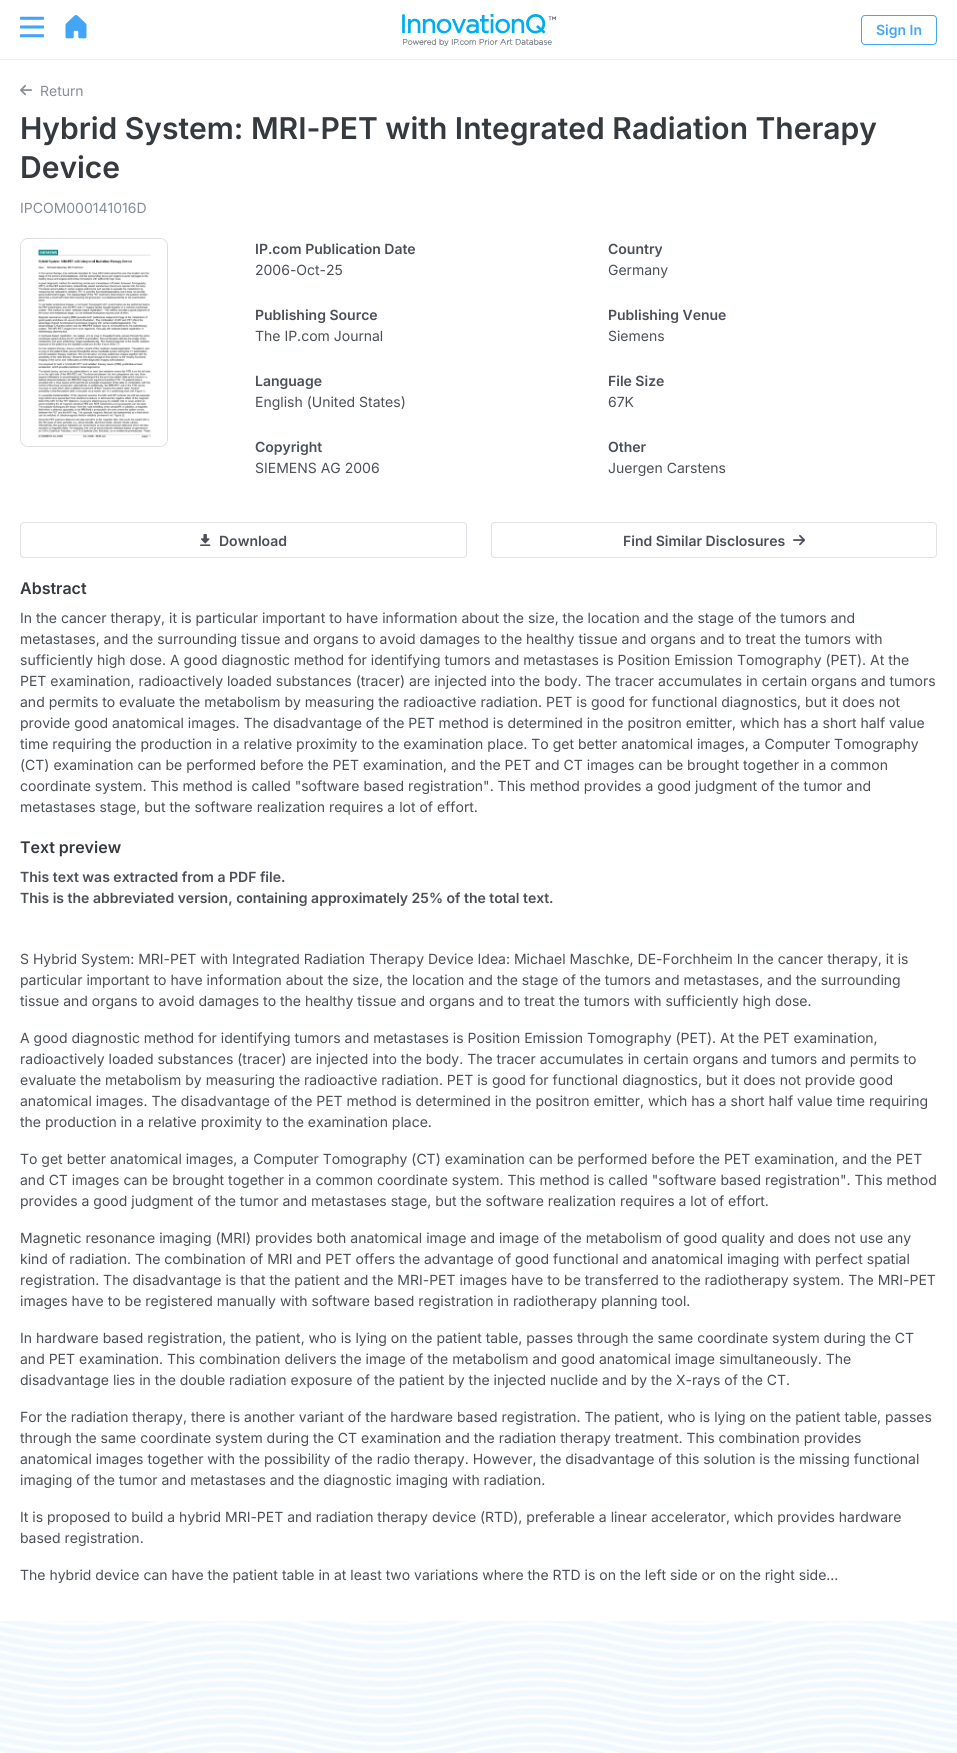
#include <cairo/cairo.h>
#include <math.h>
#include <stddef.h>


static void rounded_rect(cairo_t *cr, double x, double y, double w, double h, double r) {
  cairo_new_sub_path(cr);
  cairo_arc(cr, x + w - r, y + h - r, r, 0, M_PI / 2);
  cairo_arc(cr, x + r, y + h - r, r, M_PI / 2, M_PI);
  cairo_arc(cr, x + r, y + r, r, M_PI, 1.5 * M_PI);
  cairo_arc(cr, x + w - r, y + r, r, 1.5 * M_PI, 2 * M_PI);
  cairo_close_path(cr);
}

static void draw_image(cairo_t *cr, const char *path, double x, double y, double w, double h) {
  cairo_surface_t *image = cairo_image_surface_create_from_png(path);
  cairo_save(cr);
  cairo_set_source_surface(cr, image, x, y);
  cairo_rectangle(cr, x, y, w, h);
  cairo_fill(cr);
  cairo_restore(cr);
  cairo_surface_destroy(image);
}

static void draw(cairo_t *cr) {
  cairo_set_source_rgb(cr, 1, 1, 1);
  cairo_paint(cr);
  cairo_set_source_rgb(cr, 234 / 255.0, 236 / 255.0, 239 / 255.0);
  cairo_rectangle(cr, 0, 59, 957, 1);
  cairo_fill(cr);
  draw_image(cr, "images/1.png", 20, 16, 24, 22);
  draw_image(cr, "images/2.png", 65, 15, 22, 24);
  draw_image(cr, "images/3.png", 402, 14, 154, 32);
  rounded_rect(cr, 861.5, 15.5, 75, 29, 3.5);
  cairo_set_source_rgb(cr, 66 / 255.0, 165 / 255.0, 245 / 255.0);
  cairo_set_line_width(cr, 1);
  cairo_stroke(cr);
  draw_image(cr, "images/4.png", 20, 84, 12, 12);
  rounded_rect(cr, 20.5, 238.5, 147, 208, 7.5);
  cairo_set_source_rgb(cr, 221 / 255.0, 221 / 255.0, 221 / 255.0);
  cairo_stroke(cr);
  draw_image(cr, "images/5.png", 21, 239, 146, 207);
  rounded_rect(cr, 20.5, 522.5, 446, 35, 3.5);
  cairo_set_source_rgb(cr, 223 / 255.0, 226 / 255.0, 230 / 255.0);
  cairo_stroke(cr);
  draw_image(cr, "images/6.png", 200, 534, 11, 12);
  rounded_rect(cr, 491.5, 522.5, 445, 35, 3.5);
  cairo_stroke(cr);
  draw_image(cr, "images/7.png", 793, 534, 12, 12);
  draw_image(cr, "images/8.png", 0, 1621, 957, 132);
  cairo_select_font_face(cr, "Inter SemiBold", CAIRO_FONT_SLANT_NORMAL, CAIRO_FONT_WEIGHT_NORMAL);
  cairo_set_font_size(cr, 14);
  cairo_set_source_rgb(cr, 66 / 255.0, 165 / 255.0, 245 / 255.0);
  cairo_move_to(cr, 876, 35);
  cairo_show_text(cr, "Sign In");
  cairo_select_font_face(cr, "Inter", CAIRO_FONT_SLANT_NORMAL, CAIRO_FONT_WEIGHT_NORMAL);
  cairo_set_source_rgb(cr, 135 / 255.0, 142 / 255.0, 149 / 255.0);
  cairo_move_to(cr, 40, 96);
  cairo_show_text(cr, "Return");
  cairo_select_font_face(cr, "Inter SemiBold", CAIRO_FONT_SLANT_NORMAL, CAIRO_FONT_WEIGHT_NORMAL);
  cairo_set_font_size(cr, 30);
  cairo_set_source_rgb(cr, 53 / 255.0, 58 / 255.0, 63 / 255.0);
  cairo_move_to(cr, 20, 139);
  cairo_show_text(cr, "Hybrid System: MRI-PET with Integrated Radiation Therapy");
  cairo_move_to(cr, 20, 178);
  cairo_show_text(cr, "Device");
  cairo_select_font_face(cr, "Inter", CAIRO_FONT_SLANT_NORMAL, CAIRO_FONT_WEIGHT_NORMAL);
  cairo_set_font_size(cr, 14);
  cairo_set_source_rgb(cr, 135 / 255.0, 142 / 255.0, 149 / 255.0);
  cairo_move_to(cr, 20, 213);
  cairo_show_text(cr, "IPCOM000141016D");
  cairo_select_font_face(cr, "Inter SemiBold", CAIRO_FONT_SLANT_NORMAL, CAIRO_FONT_WEIGHT_NORMAL);
  cairo_set_source_rgb(cr, 74 / 255.0, 80 / 255.0, 86 / 255.0);
  cairo_move_to(cr, 255, 254);
  cairo_show_text(cr, "IP.com Publication Date");
  cairo_select_font_face(cr, "Inter", CAIRO_FONT_SLANT_NORMAL, CAIRO_FONT_WEIGHT_NORMAL);
  cairo_move_to(cr, 255, 275);
  cairo_show_text(cr, "2006-Oct-25");
  cairo_select_font_face(cr, "Inter SemiBold", CAIRO_FONT_SLANT_NORMAL, CAIRO_FONT_WEIGHT_NORMAL);
  cairo_move_to(cr, 608, 254);
  cairo_show_text(cr, "Country");
  cairo_select_font_face(cr, "Inter", CAIRO_FONT_SLANT_NORMAL, CAIRO_FONT_WEIGHT_NORMAL);
  cairo_move_to(cr, 608, 275);
  cairo_show_text(cr, "Germany");
  cairo_select_font_face(cr, "Inter SemiBold", CAIRO_FONT_SLANT_NORMAL, CAIRO_FONT_WEIGHT_NORMAL);
  cairo_move_to(cr, 255, 320);
  cairo_show_text(cr, "Publishing Source");
  cairo_select_font_face(cr, "Inter", CAIRO_FONT_SLANT_NORMAL, CAIRO_FONT_WEIGHT_NORMAL);
  cairo_move_to(cr, 255, 341);
  cairo_show_text(cr, "The IP.com Journal");
  cairo_select_font_face(cr, "Inter SemiBold", CAIRO_FONT_SLANT_NORMAL, CAIRO_FONT_WEIGHT_NORMAL);
  cairo_move_to(cr, 608, 320);
  cairo_show_text(cr, "Publishing Venue");
  cairo_select_font_face(cr, "Inter", CAIRO_FONT_SLANT_NORMAL, CAIRO_FONT_WEIGHT_NORMAL);
  cairo_move_to(cr, 608, 341);
  cairo_show_text(cr, "Siemens");
  cairo_select_font_face(cr, "Inter SemiBold", CAIRO_FONT_SLANT_NORMAL, CAIRO_FONT_WEIGHT_NORMAL);
  cairo_move_to(cr, 255, 386);
  cairo_show_text(cr, "Language");
  cairo_select_font_face(cr, "Inter", CAIRO_FONT_SLANT_NORMAL, CAIRO_FONT_WEIGHT_NORMAL);
  cairo_move_to(cr, 255, 407);
  cairo_show_text(cr, "English (United States)");
  cairo_select_font_face(cr, "Inter SemiBold", CAIRO_FONT_SLANT_NORMAL, CAIRO_FONT_WEIGHT_NORMAL);
  cairo_move_to(cr, 608, 386);
  cairo_show_text(cr, "File Size");
  cairo_select_font_face(cr, "Inter", CAIRO_FONT_SLANT_NORMAL, CAIRO_FONT_WEIGHT_NORMAL);
  cairo_move_to(cr, 608, 407);
  cairo_show_text(cr, "67K");
  cairo_select_font_face(cr, "Inter SemiBold", CAIRO_FONT_SLANT_NORMAL, CAIRO_FONT_WEIGHT_NORMAL);
  cairo_move_to(cr, 255, 452);
  cairo_show_text(cr, "Copyright");
  cairo_select_font_face(cr, "Inter", CAIRO_FONT_SLANT_NORMAL, CAIRO_FONT_WEIGHT_NORMAL);
  cairo_move_to(cr, 255, 473);
  cairo_show_text(cr, "SIEMENS AG 2006");
  cairo_select_font_face(cr, "Inter SemiBold", CAIRO_FONT_SLANT_NORMAL, CAIRO_FONT_WEIGHT_NORMAL);
  cairo_move_to(cr, 608, 452);
  cairo_show_text(cr, "Other");
  cairo_select_font_face(cr, "Inter", CAIRO_FONT_SLANT_NORMAL, CAIRO_FONT_WEIGHT_NORMAL);
  cairo_move_to(cr, 608, 473);
  cairo_show_text(cr, "Juergen Carstens");
  cairo_select_font_face(cr, "Inter SemiBold", CAIRO_FONT_SLANT_NORMAL, CAIRO_FONT_WEIGHT_NORMAL);
  cairo_move_to(cr, 219, 546);
  cairo_show_text(cr, "Download");
  cairo_move_to(cr, 623, 546);
  cairo_show_text(cr, "Find Similar Disclosures");
  cairo_set_font_size(cr, 16);
  cairo_set_source_rgb(cr, 53 / 255.0, 58 / 255.0, 63 / 255.0);
  cairo_move_to(cr, 20, 594);
  cairo_show_text(cr, "Abstract");
  cairo_select_font_face(cr, "Inter", CAIRO_FONT_SLANT_NORMAL, CAIRO_FONT_WEIGHT_NORMAL);
  cairo_set_font_size(cr, 14);
  cairo_set_source_rgb(cr, 74 / 255.0, 80 / 255.0, 86 / 255.0);
  cairo_move_to(cr, 20, 623);
  cairo_show_text(cr, "In the cancer therapy, it is particular important to have information about the size, the location and the stage of the tumors and");
  cairo_move_to(cr, 20, 644);
  cairo_show_text(cr, "metastases, and the surrounding tissue and organs to avoid damages to the healthy tissue and organs and to treat the tumors with");
  cairo_move_to(cr, 20, 665);
  cairo_show_text(cr, "sufficiently high dose. A good diagnostic method for identifying tumors and metastases is Position Emission Tomography (PET). At the");
  cairo_move_to(cr, 20, 686);
  cairo_show_text(cr, "PET examination, radioactively loaded substances (tracer) are injected into the body. The tracer accumulates in certain organs and tumors");
  cairo_move_to(cr, 20, 707);
  cairo_show_text(cr, "and permits to evaluate the metabolism by measuring the radioactive radiation. PET is good for functional diagnostics, but it does not");
  cairo_move_to(cr, 20, 728);
  cairo_show_text(cr, "provide good anatomical images. The disadvantage of the PET method is determined in the positron emitter, which has a short half value");
  cairo_move_to(cr, 20, 749);
  cairo_show_text(cr, "time requiring the production in a relative proximity to the examination place. To get better anatomical images, a Computer Tomography");
  cairo_move_to(cr, 20, 770);
  cairo_show_text(cr, "(CT) examination can be performed before the PET examination, and the PET and CT images can be brought together in a common");
  cairo_move_to(cr, 20, 791);
  cairo_show_text(cr, "coordinate system. This method is called \"software based registration\". This method provides a good judgment of the tumor and");
  cairo_move_to(cr, 20, 812);
  cairo_show_text(cr, "metastases stage, but the software realization requires a lot of effort.");
  cairo_select_font_face(cr, "Inter SemiBold", CAIRO_FONT_SLANT_NORMAL, CAIRO_FONT_WEIGHT_NORMAL);
  cairo_set_font_size(cr, 16);
  cairo_set_source_rgb(cr, 53 / 255.0, 58 / 255.0, 63 / 255.0);
  cairo_move_to(cr, 20, 853);
  cairo_show_text(cr, "Text preview");
  cairo_set_font_size(cr, 14);
  cairo_set_source_rgb(cr, 74 / 255.0, 80 / 255.0, 86 / 255.0);
  cairo_move_to(cr, 20, 882);
  cairo_show_text(cr, "This text was extracted from a PDF file.");
  cairo_move_to(cr, 20, 903);
  cairo_show_text(cr, "This is the abbreviated version, containing approximately 25% of the total text.");
  cairo_select_font_face(cr, "Inter", CAIRO_FONT_SLANT_NORMAL, CAIRO_FONT_WEIGHT_NORMAL);
  cairo_move_to(cr, 20, 964);
  cairo_show_text(cr, "S Hybrid System: MRI-PET with Integrated Radiation Therapy Device Idea: Michael Maschke, DE-Forchheim In the cancer therapy, it is");
  cairo_move_to(cr, 20, 985);
  cairo_show_text(cr, "particular important to have information about the size, the location and the stage of the tumors and metastases, and the surrounding");
  cairo_move_to(cr, 20, 1006);
  cairo_show_text(cr, "tissue and organs to avoid damages to the healthy tissue and organs and to treat the tumors with sufficiently high dose.");
  cairo_move_to(cr, 20, 1043);
  cairo_show_text(cr, "A good diagnostic method for identifying tumors and metastases is Position Emission Tomography (PET). At the PET examination,");
  cairo_move_to(cr, 20, 1064);
  cairo_show_text(cr, "radioactively loaded substances (tracer) are injected into the body. The tracer accumulates in certain organs and tumors and permits to");
  cairo_move_to(cr, 20, 1085);
  cairo_show_text(cr, "evaluate the metabolism by measuring the radioactive radiation. PET is good for functional diagnostics, but it does not provide good");
  cairo_move_to(cr, 20, 1106);
  cairo_show_text(cr, "anatomical images. The disadvantage of the PET method is determined in the positron emitter, which has a short half value time requiring");
  cairo_move_to(cr, 20, 1127);
  cairo_show_text(cr, "the production in a relative proximity to the examination place.");
  cairo_move_to(cr, 20, 1164);
  cairo_show_text(cr, "To get better anatomical images, a Computer Tomography (CT) examination can be performed before the PET examination, and the PET");
  cairo_move_to(cr, 20, 1185);
  cairo_show_text(cr, "and CT images can be brought together in a common coordinate system. This method is called \"software based registration\". This method");
  cairo_move_to(cr, 20, 1206);
  cairo_show_text(cr, "provides a good judgment of the tumor and metastases stage, but the software realization requires a lot of effort.");
  cairo_move_to(cr, 20, 1243);
  cairo_show_text(cr, "Magnetic resonance imaging (MRI) provides both anatomical image and image of the metabolism of good quality and does not use any");
  cairo_move_to(cr, 20, 1264);
  cairo_show_text(cr, "kind of radiation. The combination of MRI and PET offers the advantage of good functional and anatomical imaging with perfect spatial");
  cairo_move_to(cr, 20, 1285);
  cairo_show_text(cr, "registration. The disadvantage is that the patient and the MRI-PET images have to be transferred to the radiotherapy system. The MRI-PET");
  cairo_move_to(cr, 20, 1306);
  cairo_show_text(cr, "images have to be registered manually with software based registration in radiotherapy planning tool.");
  cairo_move_to(cr, 20, 1343);
  cairo_show_text(cr, "In hardware based registration, the patient, who is lying on the patient table, passes through the same coordinate system during the CT");
  cairo_move_to(cr, 20, 1364);
  cairo_show_text(cr, "and PET examination. This combination delivers the image of the metabolism and good anatomical image simultaneously. The");
  cairo_move_to(cr, 20, 1385);
  cairo_show_text(cr, "disadvantage lies in the double radiation exposure of the patient by the injected nuclide and by the X-rays of the CT.");
  cairo_move_to(cr, 20, 1422);
  cairo_show_text(cr, "For the radiation therapy, there is another variant of the hardware based registration. The patient, who is lying on the patient table, passes");
  cairo_move_to(cr, 20, 1443);
  cairo_show_text(cr, "through the same coordinate system during the CT examination and the radiation therapy treatment. This combination provides");
  cairo_move_to(cr, 20, 1464);
  cairo_show_text(cr, "anatomical images together with the possibility of the radio therapy. However, the disadvantage of this solution is the missing functional");
  cairo_move_to(cr, 20, 1485);
  cairo_show_text(cr, "imaging of the tumor and metastases and the diagnostic imaging with radiation.");
  cairo_move_to(cr, 20, 1522);
  cairo_show_text(cr, "It is proposed to build a hybrid MRI-PET and radiation therapy device (RTD), preferable a linear accelerator, which provides hardware");
  cairo_move_to(cr, 20, 1543);
  cairo_show_text(cr, "based registration.");
  cairo_move_to(cr, 20, 1580);
  cairo_show_text(cr, "The hybrid device can have the patient table in at least two variations where the RTD is on the left side or on the right side...");
}

int main(void) {
  cairo_surface_t *surface = cairo_image_surface_create(CAIRO_FORMAT_RGB24, 957, 1753);
  cairo_t *cr = cairo_create(surface);
  cairo_font_options_t *options = cairo_font_options_create();
  cairo_font_options_set_hint_metrics(options, CAIRO_HINT_METRICS_OFF);
  cairo_font_options_set_hint_style(options, CAIRO_HINT_STYLE_NONE);
  cairo_set_font_options(cr, options);
  cairo_set_miter_limit(cr, 4);
  draw(cr);
  cairo_surface_write_to_png(surface, "out.png");
  cairo_font_options_destroy(options);
  cairo_destroy(cr);
  cairo_surface_destroy(surface);
  return 0;
}
